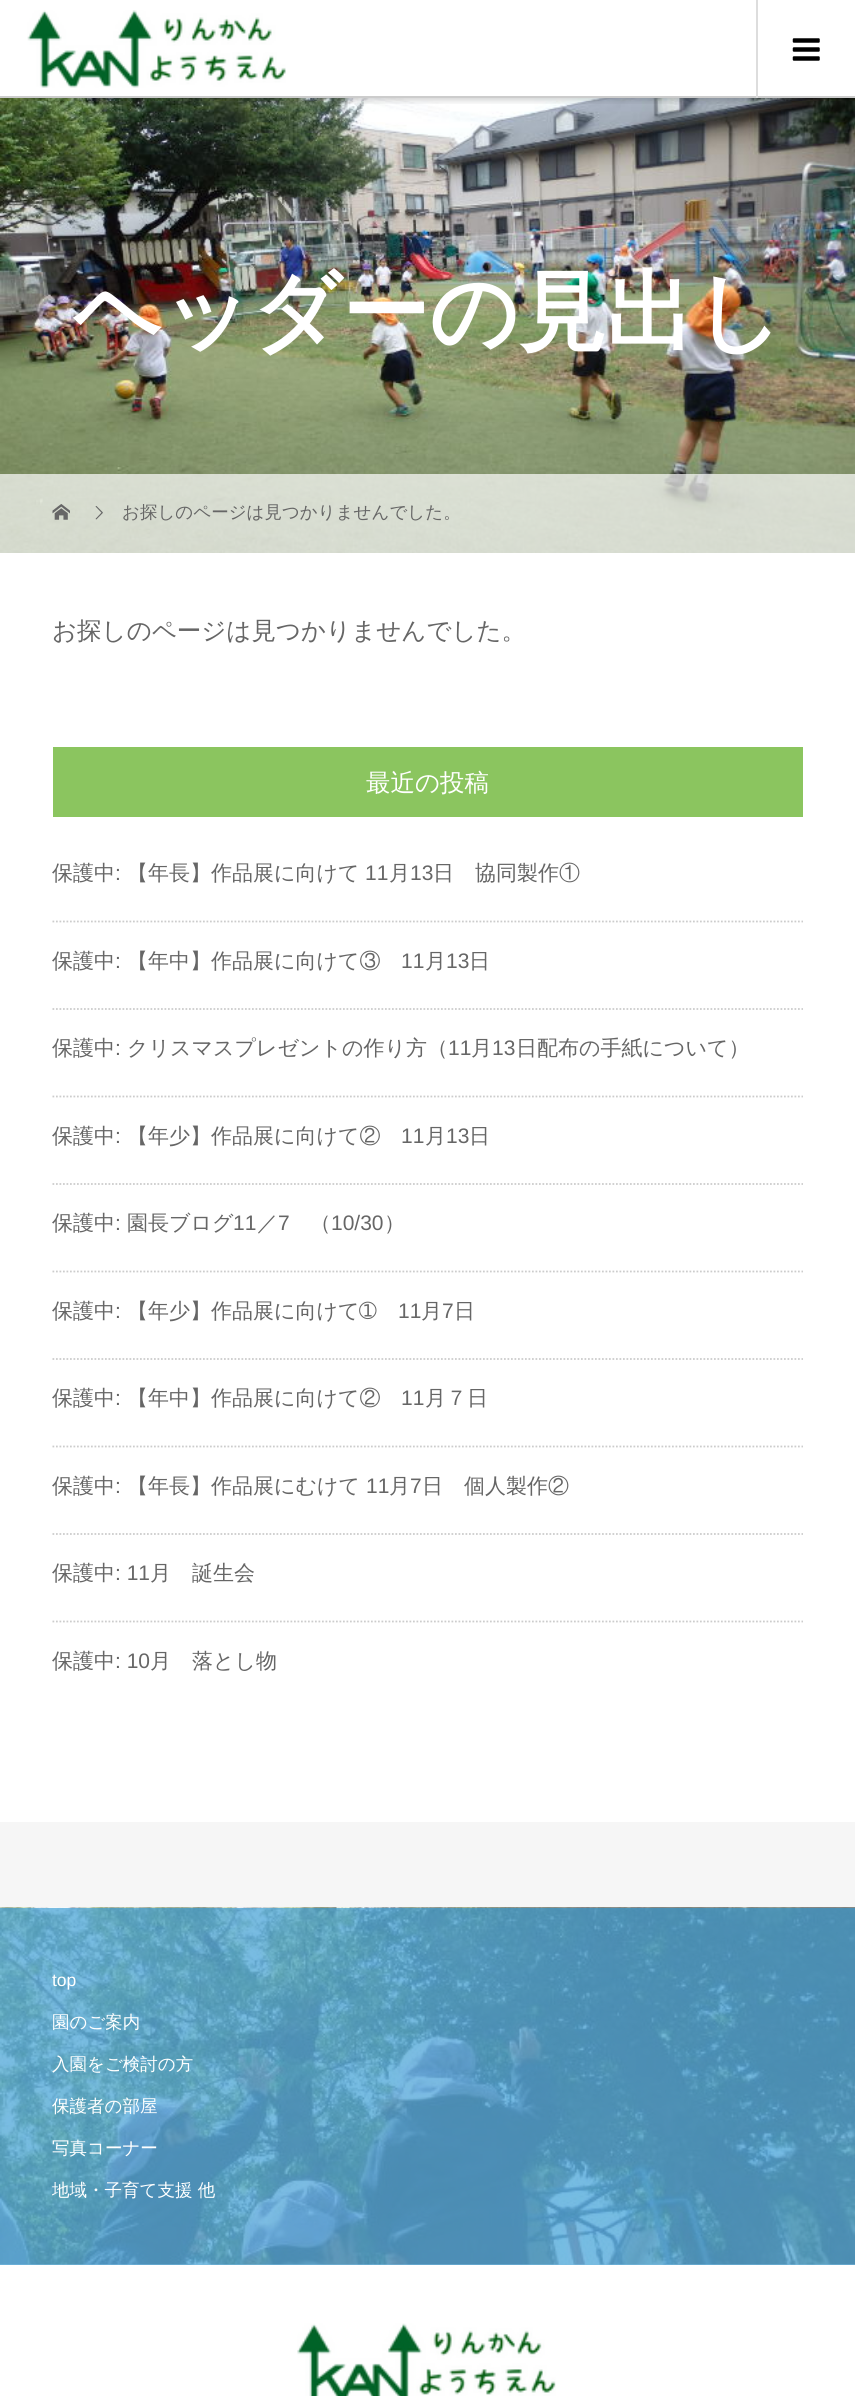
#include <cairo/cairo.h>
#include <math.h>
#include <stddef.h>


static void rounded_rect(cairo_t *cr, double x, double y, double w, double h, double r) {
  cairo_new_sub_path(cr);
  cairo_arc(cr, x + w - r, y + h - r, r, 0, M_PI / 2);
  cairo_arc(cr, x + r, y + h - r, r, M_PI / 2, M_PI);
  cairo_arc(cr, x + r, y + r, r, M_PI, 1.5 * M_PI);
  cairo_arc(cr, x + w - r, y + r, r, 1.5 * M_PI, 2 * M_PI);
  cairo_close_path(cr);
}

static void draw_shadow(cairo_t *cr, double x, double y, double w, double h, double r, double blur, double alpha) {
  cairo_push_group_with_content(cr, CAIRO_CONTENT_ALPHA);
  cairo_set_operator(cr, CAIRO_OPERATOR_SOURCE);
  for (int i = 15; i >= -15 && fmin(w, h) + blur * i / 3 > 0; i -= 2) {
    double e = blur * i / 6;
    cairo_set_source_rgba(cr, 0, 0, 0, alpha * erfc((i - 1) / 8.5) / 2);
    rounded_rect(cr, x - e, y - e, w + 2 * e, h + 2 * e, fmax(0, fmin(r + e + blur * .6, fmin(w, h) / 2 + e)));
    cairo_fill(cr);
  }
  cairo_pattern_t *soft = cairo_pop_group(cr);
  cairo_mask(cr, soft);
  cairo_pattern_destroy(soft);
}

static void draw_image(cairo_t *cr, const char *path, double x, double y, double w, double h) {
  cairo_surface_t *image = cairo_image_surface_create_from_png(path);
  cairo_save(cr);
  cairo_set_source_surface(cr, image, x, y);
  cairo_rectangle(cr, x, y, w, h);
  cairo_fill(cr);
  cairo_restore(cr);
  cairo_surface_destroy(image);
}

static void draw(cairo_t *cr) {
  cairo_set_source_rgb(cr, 1, 1, 1);
  cairo_paint(cr);
  cairo_set_source_rgb(cr, 123 / 255.0, 189 / 255.0, 226 / 255.0);
  cairo_rectangle(cr, 0, 2264, 855, 1);
  cairo_fill(cr);
  draw_image(cr, "images/3.png", 0, 98, 855, 455);
  cairo_save(cr);
  cairo_rectangle(cr, 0, 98, 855, 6);
  cairo_clip(cr);
  cairo_set_source_rgb(cr, 0, 0, 0);
  draw_shadow(cr, 0, 2, 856, 98, 0, 3.5, 0.2);
  cairo_restore(cr);
  cairo_set_source_rgb(cr, 204 / 255.0, 204 / 255.0, 204 / 255.0);
  cairo_rectangle(cr, 0, 96, 855, 2);
  cairo_fill(cr);
  draw_image(cr, "images/1.png", 27, 10, 259, 78);
  cairo_set_source_rgb(cr, 221 / 255.0, 221 / 255.0, 221 / 255.0);
  cairo_rectangle(cr, 756, 0, 2, 98);
  cairo_fill(cr);
  draw_image(cr, "images/2.png", 792, 38, 28, 23);
  cairo_set_source_rgba(cr, 1, 1, 1, 0.7);
  cairo_rectangle(cr, 0, 474, 855, 79);
  cairo_fill(cr);
  draw_image(cr, "images/4.png", 52, 504, 18, 16);
  draw_image(cr, "images/5.png", 95, 506, 8, 14);
  cairo_set_source_rgb(cr, 139 / 255.0, 197 / 255.0, 95 / 255.0);
  cairo_rectangle(cr, 53, 747, 750, 70);
  cairo_fill(cr);
  cairo_new_path(cr);
  cairo_move_to(cr, 52.5, 921.5);
  cairo_line_to(cr, 803, 921.5);
  cairo_set_source_rgb(cr, 204 / 255.0, 204 / 255.0, 204 / 255.0);
  cairo_set_line_width(cr, 1.8);
  cairo_set_dash(cr, (double[]){1.75, 1.75}, 2, 0);
  cairo_stroke(cr);
  cairo_new_path(cr);
  cairo_move_to(cr, 52.5, 1009);
  cairo_line_to(cr, 803, 1009);
  cairo_stroke(cr);
  cairo_new_path(cr);
  cairo_move_to(cr, 52.5, 1096.5);
  cairo_line_to(cr, 803, 1096.5);
  cairo_stroke(cr);
  cairo_new_path(cr);
  cairo_move_to(cr, 52.5, 1184);
  cairo_line_to(cr, 803, 1184);
  cairo_stroke(cr);
  cairo_new_path(cr);
  cairo_move_to(cr, 52.5, 1271.5);
  cairo_line_to(cr, 803, 1271.5);
  cairo_stroke(cr);
  cairo_new_path(cr);
  cairo_move_to(cr, 52.5, 1359);
  cairo_line_to(cr, 803, 1359);
  cairo_stroke(cr);
  cairo_new_path(cr);
  cairo_move_to(cr, 52.5, 1446.5);
  cairo_line_to(cr, 803, 1446.5);
  cairo_stroke(cr);
  cairo_new_path(cr);
  cairo_move_to(cr, 52.5, 1534);
  cairo_line_to(cr, 803, 1534);
  cairo_stroke(cr);
  cairo_new_path(cr);
  cairo_move_to(cr, 52.5, 1621.5);
  cairo_line_to(cr, 803, 1621.5);
  cairo_stroke(cr);
  cairo_set_source_rgb(cr, 246 / 255.0, 246 / 255.0, 246 / 255.0);
  cairo_rectangle(cr, 0, 1822, 855, 86);
  cairo_fill(cr);
  draw_image(cr, "images/6.png", 0, 1907, 855, 358);
  draw_image(cr, "images/7.png", 297, 2323, 259, 73);
  cairo_select_font_face(cr, "WenQuanYi Zen Hei", CAIRO_FONT_SLANT_NORMAL, CAIRO_FONT_WEIGHT_BOLD);
  cairo_set_font_size(cr, 87.5);
  cairo_set_source_rgb(cr, 1, 1, 1);
  cairo_move_to(cr, 73, 342);
  cairo_show_text(cr, "ヘッダーの見出し");
  cairo_select_font_face(cr, "WenQuanYi Zen Hei Medium", CAIRO_FONT_SLANT_NORMAL, CAIRO_FONT_WEIGHT_NORMAL);
  cairo_set_font_size(cr, 17.5);
  cairo_set_source_rgb(cr, 102 / 255.0, 102 / 255.0, 102 / 255.0);
  cairo_move_to(cr, 122, 518);
  cairo_show_text(cr, "お探しのページは見つかりませんでした。");
  cairo_set_font_size(cr, 24.5);
  cairo_move_to(cr, 52, 639);
  cairo_show_text(cr, "お探しのページは見つかりませんでした。");
  cairo_set_source_rgb(cr, 1, 1, 1);
  cairo_move_to(cr, 366, 791);
  cairo_show_text(cr, "最近の投稿");
  cairo_set_font_size(cr, 21);
  cairo_set_source_rgb(cr, 102 / 255.0, 102 / 255.0, 102 / 255.0);
  cairo_move_to(cr, 52, 880);
  cairo_show_text(cr, "保護中");
  cairo_select_font_face(cr, "Liberation Sans", CAIRO_FONT_SLANT_NORMAL, CAIRO_FONT_WEIGHT_NORMAL);
  cairo_move_to(cr, 115, 880);
  cairo_show_text(cr, ":");
  cairo_select_font_face(cr, "WenQuanYi Zen Hei Medium", CAIRO_FONT_SLANT_NORMAL, CAIRO_FONT_WEIGHT_NORMAL);
  cairo_move_to(cr, 127, 880);
  cairo_show_text(cr, "【年長】作品展に向けて");
  cairo_select_font_face(cr, "Liberation Sans", CAIRO_FONT_SLANT_NORMAL, CAIRO_FONT_WEIGHT_NORMAL);
  cairo_move_to(cr, 365, 880);
  cairo_show_text(cr, "11");
  cairo_select_font_face(cr, "WenQuanYi Zen Hei Medium", CAIRO_FONT_SLANT_NORMAL, CAIRO_FONT_WEIGHT_NORMAL);
  cairo_move_to(cr, 389, 880);
  cairo_show_text(cr, "月");
  cairo_select_font_face(cr, "Liberation Sans", CAIRO_FONT_SLANT_NORMAL, CAIRO_FONT_WEIGHT_NORMAL);
  cairo_move_to(cr, 410, 880);
  cairo_show_text(cr, "13");
  cairo_select_font_face(cr, "WenQuanYi Zen Hei Medium", CAIRO_FONT_SLANT_NORMAL, CAIRO_FONT_WEIGHT_NORMAL);
  cairo_move_to(cr, 433, 880);
  cairo_show_text(cr, "日　協同製作①");
  cairo_move_to(cr, 52, 968);
  cairo_show_text(cr, "保護中");
  cairo_select_font_face(cr, "Liberation Sans", CAIRO_FONT_SLANT_NORMAL, CAIRO_FONT_WEIGHT_NORMAL);
  cairo_move_to(cr, 115, 968);
  cairo_show_text(cr, ":");
  cairo_select_font_face(cr, "WenQuanYi Zen Hei Medium", CAIRO_FONT_SLANT_NORMAL, CAIRO_FONT_WEIGHT_NORMAL);
  cairo_move_to(cr, 127, 968);
  cairo_show_text(cr, "【年中】作品展に向けて③");
  cairo_select_font_face(cr, "Liberation Sans", CAIRO_FONT_SLANT_NORMAL, CAIRO_FONT_WEIGHT_NORMAL);
  cairo_move_to(cr, 401, 968);
  cairo_show_text(cr, "11");
  cairo_select_font_face(cr, "WenQuanYi Zen Hei Medium", CAIRO_FONT_SLANT_NORMAL, CAIRO_FONT_WEIGHT_NORMAL);
  cairo_move_to(cr, 425, 968);
  cairo_show_text(cr, "月");
  cairo_select_font_face(cr, "Liberation Sans", CAIRO_FONT_SLANT_NORMAL, CAIRO_FONT_WEIGHT_NORMAL);
  cairo_move_to(cr, 446, 968);
  cairo_show_text(cr, "13");
  cairo_select_font_face(cr, "WenQuanYi Zen Hei Medium", CAIRO_FONT_SLANT_NORMAL, CAIRO_FONT_WEIGHT_NORMAL);
  cairo_move_to(cr, 469, 968);
  cairo_show_text(cr, "日");
  cairo_move_to(cr, 52, 1055);
  cairo_show_text(cr, "保護中");
  cairo_select_font_face(cr, "Liberation Sans", CAIRO_FONT_SLANT_NORMAL, CAIRO_FONT_WEIGHT_NORMAL);
  cairo_move_to(cr, 115, 1055);
  cairo_show_text(cr, ":");
  cairo_select_font_face(cr, "WenQuanYi Zen Hei Medium", CAIRO_FONT_SLANT_NORMAL, CAIRO_FONT_WEIGHT_NORMAL);
  cairo_move_to(cr, 127, 1055);
  cairo_show_text(cr, "クリスマスプレゼントの作り方（");
  cairo_select_font_face(cr, "Liberation Sans", CAIRO_FONT_SLANT_NORMAL, CAIRO_FONT_WEIGHT_NORMAL);
  cairo_move_to(cr, 448, 1055);
  cairo_show_text(cr, "11");
  cairo_select_font_face(cr, "WenQuanYi Zen Hei Medium", CAIRO_FONT_SLANT_NORMAL, CAIRO_FONT_WEIGHT_NORMAL);
  cairo_move_to(cr, 471, 1055);
  cairo_show_text(cr, "月");
  cairo_select_font_face(cr, "Liberation Sans", CAIRO_FONT_SLANT_NORMAL, CAIRO_FONT_WEIGHT_NORMAL);
  cairo_move_to(cr, 492, 1055);
  cairo_show_text(cr, "13");
  cairo_select_font_face(cr, "WenQuanYi Zen Hei Medium", CAIRO_FONT_SLANT_NORMAL, CAIRO_FONT_WEIGHT_NORMAL);
  cairo_move_to(cr, 516, 1055);
  cairo_show_text(cr, "日配布の手紙について）");
  cairo_move_to(cr, 52, 1143);
  cairo_show_text(cr, "保護中");
  cairo_select_font_face(cr, "Liberation Sans", CAIRO_FONT_SLANT_NORMAL, CAIRO_FONT_WEIGHT_NORMAL);
  cairo_move_to(cr, 115, 1143);
  cairo_show_text(cr, ":");
  cairo_select_font_face(cr, "WenQuanYi Zen Hei Medium", CAIRO_FONT_SLANT_NORMAL, CAIRO_FONT_WEIGHT_NORMAL);
  cairo_move_to(cr, 127, 1143);
  cairo_show_text(cr, "【年少】作品展に向けて②");
  cairo_select_font_face(cr, "Liberation Sans", CAIRO_FONT_SLANT_NORMAL, CAIRO_FONT_WEIGHT_NORMAL);
  cairo_move_to(cr, 401, 1143);
  cairo_show_text(cr, "11");
  cairo_select_font_face(cr, "WenQuanYi Zen Hei Medium", CAIRO_FONT_SLANT_NORMAL, CAIRO_FONT_WEIGHT_NORMAL);
  cairo_move_to(cr, 425, 1143);
  cairo_show_text(cr, "月");
  cairo_select_font_face(cr, "Liberation Sans", CAIRO_FONT_SLANT_NORMAL, CAIRO_FONT_WEIGHT_NORMAL);
  cairo_move_to(cr, 446, 1143);
  cairo_show_text(cr, "13");
  cairo_select_font_face(cr, "WenQuanYi Zen Hei Medium", CAIRO_FONT_SLANT_NORMAL, CAIRO_FONT_WEIGHT_NORMAL);
  cairo_move_to(cr, 469, 1143);
  cairo_show_text(cr, "日");
  cairo_move_to(cr, 52, 1230);
  cairo_show_text(cr, "保護中");
  cairo_select_font_face(cr, "Liberation Sans", CAIRO_FONT_SLANT_NORMAL, CAIRO_FONT_WEIGHT_NORMAL);
  cairo_move_to(cr, 115, 1230);
  cairo_show_text(cr, ":");
  cairo_select_font_face(cr, "WenQuanYi Zen Hei Medium", CAIRO_FONT_SLANT_NORMAL, CAIRO_FONT_WEIGHT_NORMAL);
  cairo_move_to(cr, 127, 1230);
  cairo_show_text(cr, "園長ブログ");
  cairo_select_font_face(cr, "Liberation Sans", CAIRO_FONT_SLANT_NORMAL, CAIRO_FONT_WEIGHT_NORMAL);
  cairo_move_to(cr, 233, 1230);
  cairo_show_text(cr, "11");
  cairo_select_font_face(cr, "WenQuanYi Zen Hei Medium", CAIRO_FONT_SLANT_NORMAL, CAIRO_FONT_WEIGHT_NORMAL);
  cairo_move_to(cr, 257, 1230);
  cairo_show_text(cr, "／");
  cairo_select_font_face(cr, "Liberation Sans", CAIRO_FONT_SLANT_NORMAL, CAIRO_FONT_WEIGHT_NORMAL);
  cairo_move_to(cr, 278, 1230);
  cairo_show_text(cr, "7");
  cairo_select_font_face(cr, "WenQuanYi Zen Hei Medium", CAIRO_FONT_SLANT_NORMAL, CAIRO_FONT_WEIGHT_NORMAL);
  cairo_move_to(cr, 310, 1230);
  cairo_show_text(cr, "（");
  cairo_select_font_face(cr, "Liberation Sans", CAIRO_FONT_SLANT_NORMAL, CAIRO_FONT_WEIGHT_NORMAL);
  cairo_move_to(cr, 331, 1230);
  cairo_show_text(cr, "10/30");
  cairo_select_font_face(cr, "WenQuanYi Zen Hei Medium", CAIRO_FONT_SLANT_NORMAL, CAIRO_FONT_WEIGHT_NORMAL);
  cairo_move_to(cr, 384, 1230);
  cairo_show_text(cr, "）");
  cairo_move_to(cr, 52, 1318);
  cairo_show_text(cr, "保護中");
  cairo_select_font_face(cr, "Liberation Sans", CAIRO_FONT_SLANT_NORMAL, CAIRO_FONT_WEIGHT_NORMAL);
  cairo_move_to(cr, 115, 1318);
  cairo_show_text(cr, ":");
  cairo_select_font_face(cr, "WenQuanYi Zen Hei Medium", CAIRO_FONT_SLANT_NORMAL, CAIRO_FONT_WEIGHT_NORMAL);
  cairo_move_to(cr, 127, 1318);
  cairo_show_text(cr, "【年少】作品展に向けて");
  cairo_select_font_face(cr, "DejaVu Sans", CAIRO_FONT_SLANT_NORMAL, CAIRO_FONT_WEIGHT_NORMAL);
  cairo_move_to(cr, 359, 1318);
  cairo_show_text(cr, "➀");
  cairo_select_font_face(cr, "Liberation Sans", CAIRO_FONT_SLANT_NORMAL, CAIRO_FONT_WEIGHT_NORMAL);
  cairo_move_to(cr, 398, 1318);
  cairo_show_text(cr, "11");
  cairo_select_font_face(cr, "WenQuanYi Zen Hei Medium", CAIRO_FONT_SLANT_NORMAL, CAIRO_FONT_WEIGHT_NORMAL);
  cairo_move_to(cr, 421, 1318);
  cairo_show_text(cr, "月");
  cairo_select_font_face(cr, "Liberation Sans", CAIRO_FONT_SLANT_NORMAL, CAIRO_FONT_WEIGHT_NORMAL);
  cairo_move_to(cr, 442, 1318);
  cairo_show_text(cr, "7");
  cairo_select_font_face(cr, "WenQuanYi Zen Hei Medium", CAIRO_FONT_SLANT_NORMAL, CAIRO_FONT_WEIGHT_NORMAL);
  cairo_move_to(cr, 454, 1318);
  cairo_show_text(cr, "日");
  cairo_move_to(cr, 52, 1405);
  cairo_show_text(cr, "保護中");
  cairo_select_font_face(cr, "Liberation Sans", CAIRO_FONT_SLANT_NORMAL, CAIRO_FONT_WEIGHT_NORMAL);
  cairo_move_to(cr, 115, 1405);
  cairo_show_text(cr, ":");
  cairo_select_font_face(cr, "WenQuanYi Zen Hei Medium", CAIRO_FONT_SLANT_NORMAL, CAIRO_FONT_WEIGHT_NORMAL);
  cairo_move_to(cr, 127, 1405);
  cairo_show_text(cr, "【年中】作品展に向けて②");
  cairo_select_font_face(cr, "Liberation Sans", CAIRO_FONT_SLANT_NORMAL, CAIRO_FONT_WEIGHT_NORMAL);
  cairo_move_to(cr, 401, 1405);
  cairo_show_text(cr, "11");
  cairo_select_font_face(cr, "WenQuanYi Zen Hei Medium", CAIRO_FONT_SLANT_NORMAL, CAIRO_FONT_WEIGHT_NORMAL);
  cairo_move_to(cr, 425, 1405);
  cairo_show_text(cr, "月７日");
  cairo_move_to(cr, 52, 1493);
  cairo_show_text(cr, "保護中");
  cairo_select_font_face(cr, "Liberation Sans", CAIRO_FONT_SLANT_NORMAL, CAIRO_FONT_WEIGHT_NORMAL);
  cairo_move_to(cr, 115, 1493);
  cairo_show_text(cr, ":");
  cairo_select_font_face(cr, "WenQuanYi Zen Hei Medium", CAIRO_FONT_SLANT_NORMAL, CAIRO_FONT_WEIGHT_NORMAL);
  cairo_move_to(cr, 127, 1493);
  cairo_show_text(cr, "【年長】作品展にむけて");
  cairo_select_font_face(cr, "Liberation Sans", CAIRO_FONT_SLANT_NORMAL, CAIRO_FONT_WEIGHT_NORMAL);
  cairo_move_to(cr, 366, 1493);
  cairo_show_text(cr, "11");
  cairo_select_font_face(cr, "WenQuanYi Zen Hei Medium", CAIRO_FONT_SLANT_NORMAL, CAIRO_FONT_WEIGHT_NORMAL);
  cairo_move_to(cr, 389, 1493);
  cairo_show_text(cr, "月");
  cairo_select_font_face(cr, "Liberation Sans", CAIRO_FONT_SLANT_NORMAL, CAIRO_FONT_WEIGHT_NORMAL);
  cairo_move_to(cr, 410, 1493);
  cairo_show_text(cr, "7");
  cairo_select_font_face(cr, "WenQuanYi Zen Hei Medium", CAIRO_FONT_SLANT_NORMAL, CAIRO_FONT_WEIGHT_NORMAL);
  cairo_move_to(cr, 422, 1493);
  cairo_show_text(cr, "日　個人製作②");
  cairo_move_to(cr, 52, 1580);
  cairo_show_text(cr, "保護中");
  cairo_select_font_face(cr, "Liberation Sans", CAIRO_FONT_SLANT_NORMAL, CAIRO_FONT_WEIGHT_NORMAL);
  cairo_move_to(cr, 115, 1580);
  cairo_show_text(cr, ": 11");
  cairo_select_font_face(cr, "WenQuanYi Zen Hei Medium", CAIRO_FONT_SLANT_NORMAL, CAIRO_FONT_WEIGHT_NORMAL);
  cairo_move_to(cr, 150, 1580);
  cairo_show_text(cr, "月　誕生会");
  cairo_move_to(cr, 52, 1668);
  cairo_show_text(cr, "保護中");
  cairo_select_font_face(cr, "Liberation Sans", CAIRO_FONT_SLANT_NORMAL, CAIRO_FONT_WEIGHT_NORMAL);
  cairo_move_to(cr, 115, 1668);
  cairo_show_text(cr, ": 10");
  cairo_select_font_face(cr, "WenQuanYi Zen Hei Medium", CAIRO_FONT_SLANT_NORMAL, CAIRO_FONT_WEIGHT_NORMAL);
  cairo_move_to(cr, 150, 1668);
  cairo_show_text(cr, "月　落とし物");
  cairo_select_font_face(cr, "Liberation Sans", CAIRO_FONT_SLANT_NORMAL, CAIRO_FONT_WEIGHT_NORMAL);
  cairo_set_font_size(cr, 17.5);
  cairo_set_source_rgb(cr, 1, 1, 1);
  cairo_move_to(cr, 52, 1986);
  cairo_show_text(cr, "top");
  cairo_select_font_face(cr, "WenQuanYi Zen Hei Medium", CAIRO_FONT_SLANT_NORMAL, CAIRO_FONT_WEIGHT_NORMAL);
  cairo_move_to(cr, 52, 2028);
  cairo_show_text(cr, "園のご案内");
  cairo_move_to(cr, 52, 2070);
  cairo_show_text(cr, "入園をご検討の方");
  cairo_move_to(cr, 52, 2112);
  cairo_show_text(cr, "保護者の部屋");
  cairo_move_to(cr, 52, 2154);
  cairo_show_text(cr, "写真コーナー");
  cairo_move_to(cr, 52, 2196);
  cairo_show_text(cr, "地域・子育て支援 他");
}

int main(void) {
  cairo_surface_t *surface = cairo_image_surface_create(CAIRO_FORMAT_RGB24, 855, 2396);
  cairo_t *cr = cairo_create(surface);
  cairo_font_options_t *options = cairo_font_options_create();
  cairo_font_options_set_hint_metrics(options, CAIRO_HINT_METRICS_OFF);
  cairo_font_options_set_hint_style(options, CAIRO_HINT_STYLE_NONE);
  cairo_set_font_options(cr, options);
  cairo_set_miter_limit(cr, 4);
  draw(cr);
  cairo_surface_write_to_png(surface, "out.png");
  cairo_font_options_destroy(options);
  cairo_destroy(cr);
  cairo_surface_destroy(surface);
  return 0;
}
